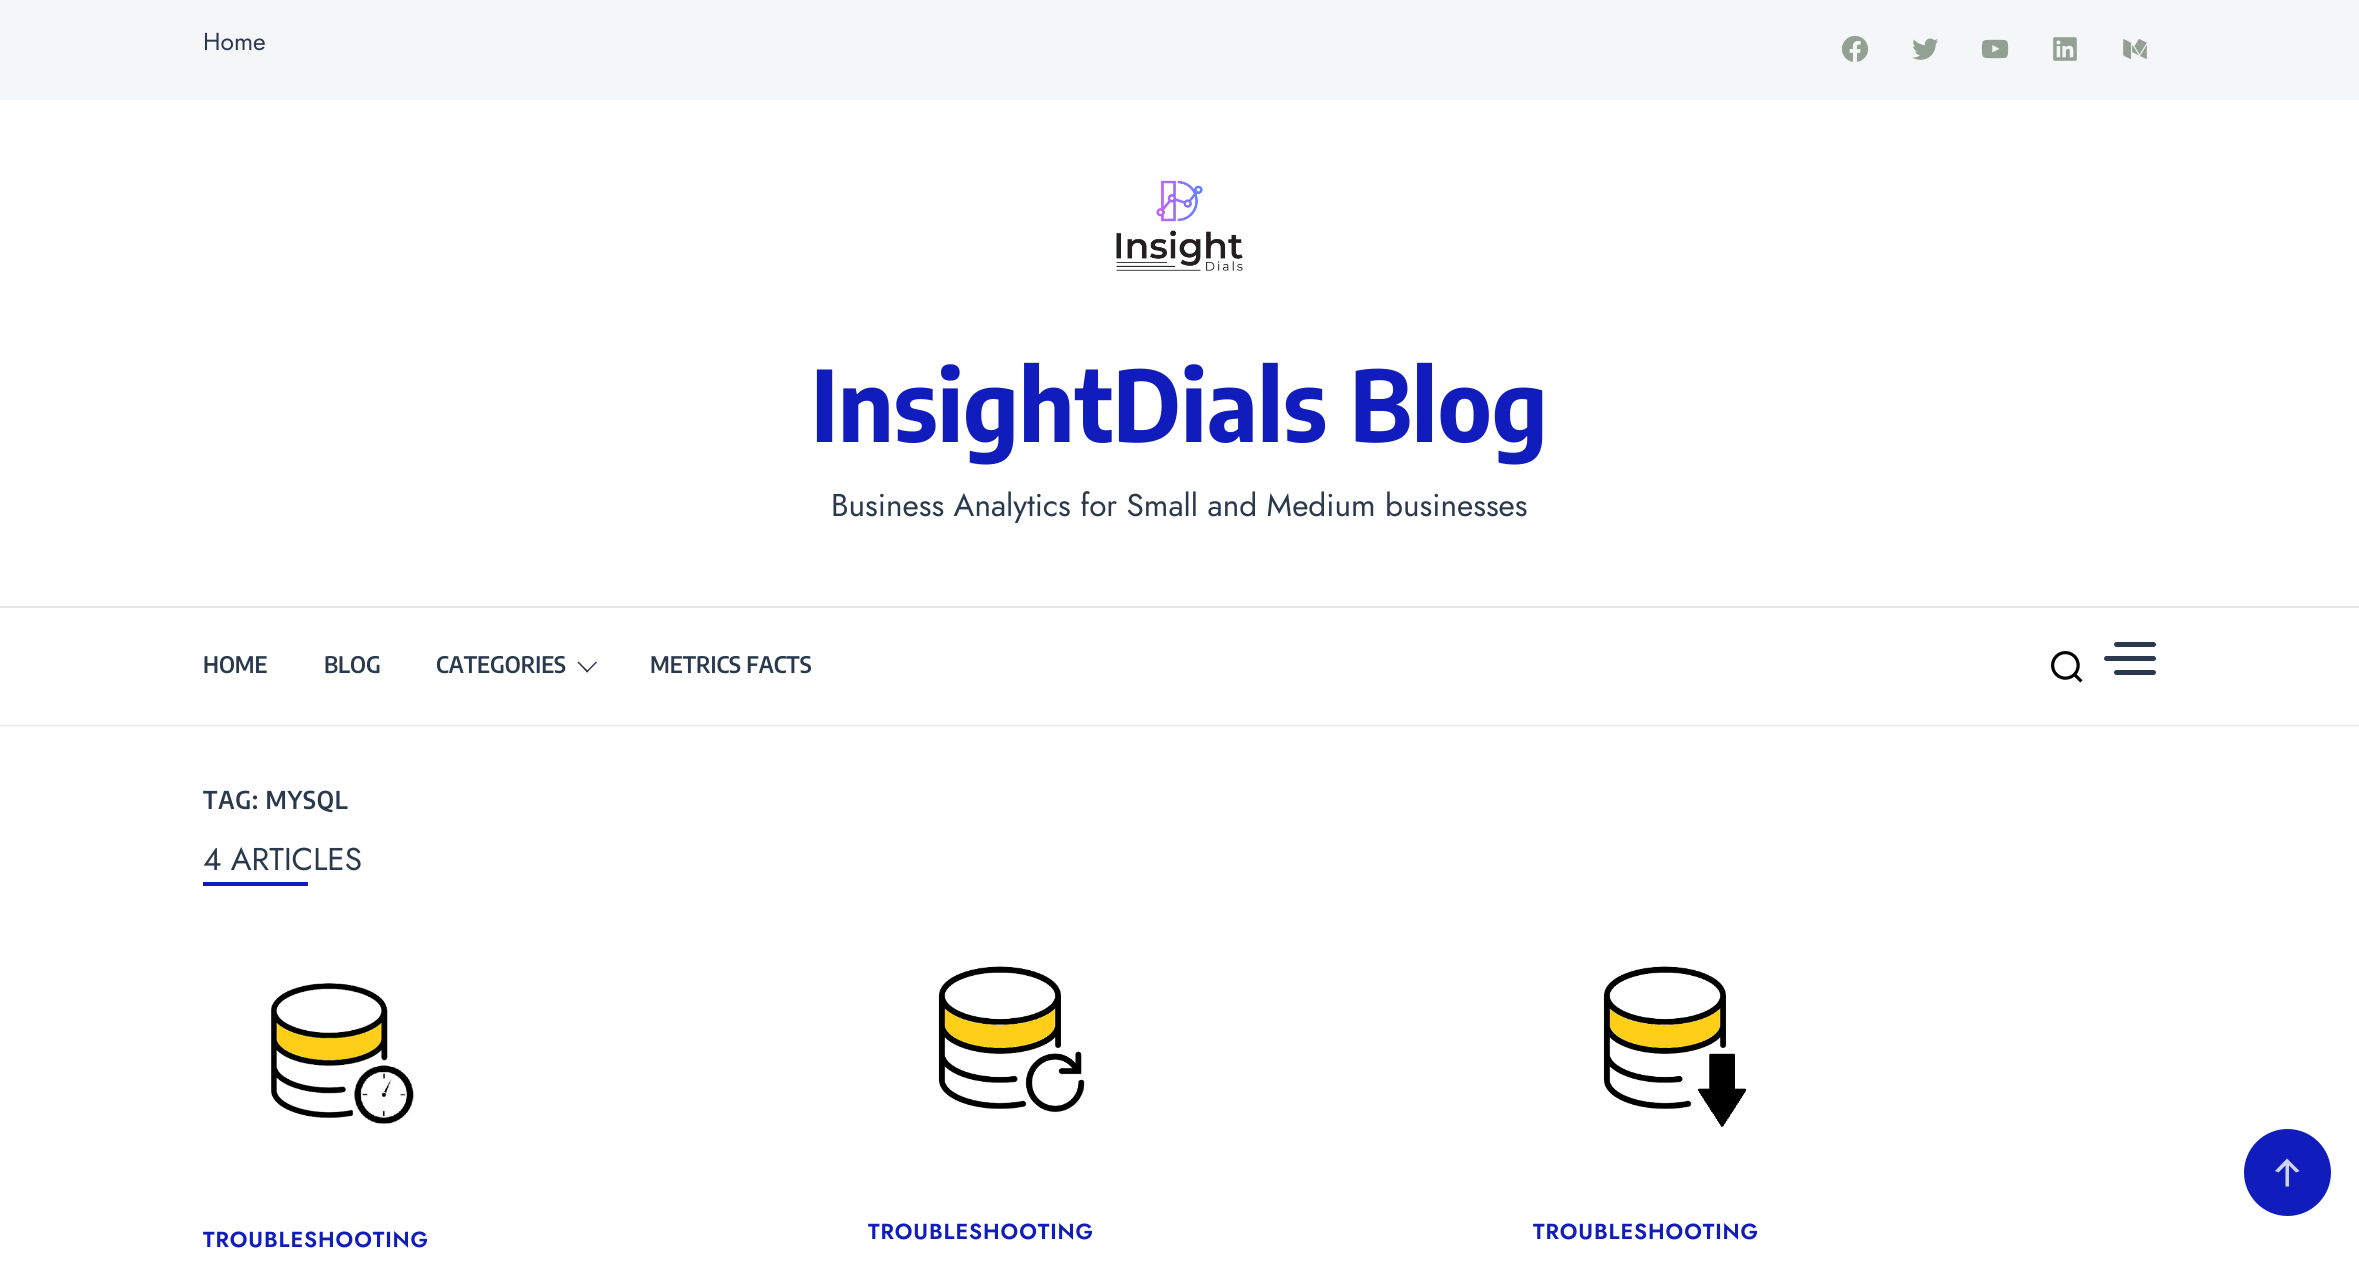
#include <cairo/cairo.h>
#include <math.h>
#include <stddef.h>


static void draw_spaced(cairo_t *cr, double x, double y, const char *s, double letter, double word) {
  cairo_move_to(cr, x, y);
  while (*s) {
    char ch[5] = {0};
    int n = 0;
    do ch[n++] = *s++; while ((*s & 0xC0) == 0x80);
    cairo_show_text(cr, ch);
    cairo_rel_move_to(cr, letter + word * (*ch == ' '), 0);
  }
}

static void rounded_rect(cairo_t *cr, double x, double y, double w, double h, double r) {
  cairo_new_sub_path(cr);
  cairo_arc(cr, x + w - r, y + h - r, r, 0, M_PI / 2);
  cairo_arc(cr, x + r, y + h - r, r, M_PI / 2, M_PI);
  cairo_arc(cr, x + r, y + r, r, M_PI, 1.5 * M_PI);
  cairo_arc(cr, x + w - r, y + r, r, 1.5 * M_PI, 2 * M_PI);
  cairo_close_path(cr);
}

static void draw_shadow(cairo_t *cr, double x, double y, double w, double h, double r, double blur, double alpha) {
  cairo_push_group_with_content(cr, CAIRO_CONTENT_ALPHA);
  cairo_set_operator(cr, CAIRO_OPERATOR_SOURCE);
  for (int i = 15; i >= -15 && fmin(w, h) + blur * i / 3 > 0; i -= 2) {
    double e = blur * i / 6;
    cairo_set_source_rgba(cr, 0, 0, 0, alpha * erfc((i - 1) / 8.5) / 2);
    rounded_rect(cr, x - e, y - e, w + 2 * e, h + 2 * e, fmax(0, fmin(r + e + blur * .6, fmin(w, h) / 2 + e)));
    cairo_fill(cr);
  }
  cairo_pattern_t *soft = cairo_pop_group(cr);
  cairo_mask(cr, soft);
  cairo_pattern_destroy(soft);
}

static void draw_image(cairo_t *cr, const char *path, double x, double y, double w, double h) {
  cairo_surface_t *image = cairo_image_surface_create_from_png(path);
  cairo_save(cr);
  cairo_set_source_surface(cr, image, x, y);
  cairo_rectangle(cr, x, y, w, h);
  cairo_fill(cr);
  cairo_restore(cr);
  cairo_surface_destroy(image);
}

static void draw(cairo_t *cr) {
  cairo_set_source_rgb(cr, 1, 1, 1);
  cairo_paint(cr);
  cairo_set_source_rgb(cr, 244 / 255.0, 246 / 255.0, 248 / 255.0);
  cairo_rectangle(cr, 0, 0, 2359, 100);
  cairo_fill(cr);
  draw_image(cr, "images/1.png", 1841, 35, 28, 27);
  draw_image(cr, "images/2.png", 1912, 38, 27, 22);
  draw_image(cr, "images/3.png", 1981, 39, 28, 20);
  draw_image(cr, "images/4.png", 2053, 37, 24, 24);
  draw_image(cr, "images/5.png", 2123, 39, 24, 20);
  draw_image(cr, "images/6.png", 1116, 180, 127, 91);
  cairo_set_source_rgb(cr, 228 / 255.0, 228 / 255.0, 228 / 255.0);
  draw_shadow(cr, 0, 607, 2359, 119, 0, 1, 1);
  cairo_set_source_rgb(cr, 1, 1, 1);
  cairo_rectangle(cr, 0, 608, 2359, 117);
  cairo_fill(cr);
  cairo_set_source_rgb(cr, 228 / 255.0, 228 / 255.0, 228 / 255.0);
  cairo_rectangle(cr, 0, 606, 2359, 2);
  cairo_fill(cr);
  cairo_set_source_rgb(cr, 43 / 255.0, 57 / 255.0, 78 / 255.0);
  cairo_new_path(cr);
  cairo_move_to(cr, 597, 662.5);
  cairo_line_to(cr, 587, 672.5);
  cairo_line_to(cr, 586, 671.5);
  cairo_line_to(cr, 596, 661.5);
  cairo_close_path(cr);
  cairo_fill(cr);
  cairo_new_path(cr);
  cairo_move_to(cr, 588.5, 671.5);
  cairo_line_to(cr, 587, 672.5);
  cairo_line_to(cr, 577.5, 662.5);
  cairo_line_to(cr, 578.5, 661.5);
  cairo_close_path(cr);
  cairo_fill(cr);
  draw_image(cr, "images/7.png", 2051, 651, 32, 32);
  rounded_rect(cr, 2104, 656, 52, 5, 2.5);
  cairo_fill(cr);
  rounded_rect(cr, 2114, 642, 42, 5, 2.5);
  cairo_fill(cr);
  rounded_rect(cr, 2114, 670, 42, 5, 2.5);
  cairo_fill(cr);
  cairo_set_source_rgb(cr, 16 / 255.0, 28 / 255.0, 188 / 255.0);
  cairo_rectangle(cr, 203, 882, 105, 4);
  cairo_fill(cr);
  cairo_arc(cr, 2287.5, 1172.5, 43.5, 0, 2 * M_PI);
  cairo_fill(cr);
  cairo_set_source_rgb(cr, 207 / 255.0, 210 / 255.0, 242 / 255.0);
  cairo_set_fill_rule(cr, CAIRO_FILL_RULE_EVEN_ODD);
  cairo_new_path(cr);
  cairo_move_to(cr, 2289, 1186.5);
  cairo_line_to(cr, 2285.5, 1186.5);
  cairo_line_to(cr, 2285.5, 1165.5);
  cairo_line_to(cr, 2278.5, 1172.5);
  cairo_line_to(cr, 2275, 1171);
  cairo_line_to(cr, 2287, 1158.5);
  cairo_line_to(cr, 2299.5, 1171);
  cairo_line_to(cr, 2296, 1172.5);
  cairo_line_to(cr, 2289, 1165.5);
  cairo_close_path(cr);
  cairo_fill(cr);
  draw_image(cr, "images/8.png", 271, 983, 143, 142);
  draw_image(cr, "images/9.png", 938, 966, 147, 147);
  draw_image(cr, "images/10.png", 1603, 966, 143, 161);
  cairo_select_font_face(cr, "Jost", CAIRO_FONT_SLANT_NORMAL, CAIRO_FONT_WEIGHT_NORMAL);
  cairo_set_font_size(cr, 24.5);
  cairo_set_source_rgb(cr, 43 / 255.0, 57 / 255.0, 78 / 255.0);
  cairo_move_to(cr, 203, 50);
  cairo_show_text(cr, "Home");
  cairo_select_font_face(cr, "Encode Sans Semi Condensed", CAIRO_FONT_SLANT_NORMAL, CAIRO_FONT_WEIGHT_BOLD);
  cairo_set_font_size(cr, 98);
  cairo_set_source_rgb(cr, 16 / 255.0, 28 / 255.0, 188 / 255.0);
  cairo_move_to(cr, 811, 442);
  cairo_show_text(cr, "InsightDials Blog");
  cairo_select_font_face(cr, "Jost", CAIRO_FONT_SLANT_NORMAL, CAIRO_FONT_WEIGHT_NORMAL);
  cairo_set_font_size(cr, 31.5);
  cairo_set_source_rgb(cr, 43 / 255.0, 57 / 255.0, 78 / 255.0);
  cairo_move_to(cr, 831, 516);
  cairo_show_text(cr, "Business Analytics for Small and Medium businesses");
  cairo_select_font_face(cr, "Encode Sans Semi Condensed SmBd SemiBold", CAIRO_FONT_SLANT_NORMAL, CAIRO_FONT_WEIGHT_NORMAL);
  cairo_set_font_size(cr, 22.75);
  cairo_move_to(cr, 203, 673);
  cairo_show_text(cr, "HOME");
  cairo_move_to(cr, 324, 673);
  cairo_show_text(cr, "BLOG");
  cairo_move_to(cr, 436, 673);
  cairo_show_text(cr, "CATEGORIES");
  cairo_move_to(cr, 650, 673);
  cairo_show_text(cr, "METRICS FACTS");
  cairo_set_font_size(cr, 24.5);
  draw_spaced(cr, 203, 809, "TAG: MYSQL", 0.9, 0);
  cairo_select_font_face(cr, "Jost", CAIRO_FONT_SLANT_NORMAL, CAIRO_FONT_WEIGHT_NORMAL);
  cairo_set_font_size(cr, 31.5);
  cairo_move_to(cr, 203, 870);
  cairo_show_text(cr, "4 ARTICLES");
  cairo_select_font_face(cr, "Jost SemiBold", CAIRO_FONT_SLANT_NORMAL, CAIRO_FONT_WEIGHT_NORMAL);
  cairo_set_font_size(cr, 21.75);
  cairo_set_source_rgb(cr, 16 / 255.0, 28 / 255.0, 188 / 255.0);
  draw_spaced(cr, 203, 1247, "TROUBLESHOOTING", 0.9, 0);
  draw_spaced(cr, 868, 1239, "TROUBLESHOOTING", 0.9, 0);
  draw_spaced(cr, 1533, 1239, "TROUBLESHOOTING", 0.9, 0);
}

int main(void) {
  cairo_surface_t *surface = cairo_image_surface_create(CAIRO_FORMAT_RGB24, 2359, 1271);
  cairo_t *cr = cairo_create(surface);
  cairo_font_options_t *options = cairo_font_options_create();
  cairo_font_options_set_hint_metrics(options, CAIRO_HINT_METRICS_OFF);
  cairo_font_options_set_hint_style(options, CAIRO_HINT_STYLE_NONE);
  cairo_set_font_options(cr, options);
  cairo_set_miter_limit(cr, 4);
  draw(cr);
  cairo_surface_write_to_png(surface, "out.png");
  cairo_font_options_destroy(options);
  cairo_destroy(cr);
  cairo_surface_destroy(surface);
  return 0;
}
